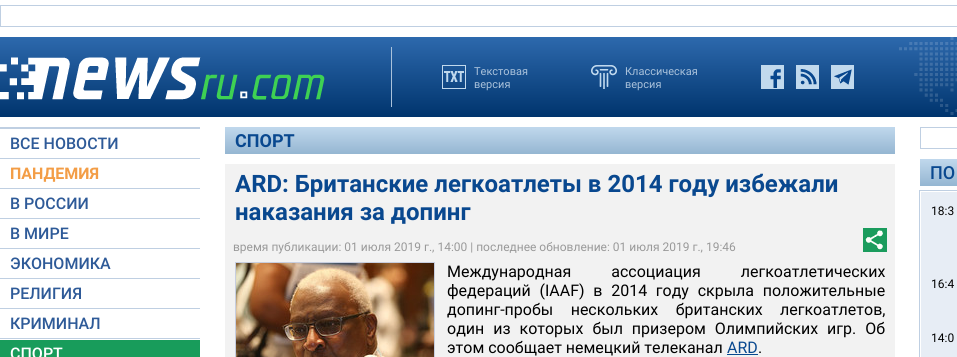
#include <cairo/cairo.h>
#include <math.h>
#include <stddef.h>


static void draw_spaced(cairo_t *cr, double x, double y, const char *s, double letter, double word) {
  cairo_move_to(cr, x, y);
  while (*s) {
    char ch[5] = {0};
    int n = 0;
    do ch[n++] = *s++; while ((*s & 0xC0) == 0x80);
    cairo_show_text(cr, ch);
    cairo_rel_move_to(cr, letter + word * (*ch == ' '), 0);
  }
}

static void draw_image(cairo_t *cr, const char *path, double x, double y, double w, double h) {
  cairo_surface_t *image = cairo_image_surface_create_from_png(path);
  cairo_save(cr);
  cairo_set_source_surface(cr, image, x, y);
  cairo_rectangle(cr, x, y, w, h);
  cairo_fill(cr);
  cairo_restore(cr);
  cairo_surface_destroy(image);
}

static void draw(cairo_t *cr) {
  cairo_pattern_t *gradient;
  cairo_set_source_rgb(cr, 1, 1, 1);
  cairo_paint(cr);
  cairo_rectangle(cr, 0.5, 5.5, 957, 21);
  cairo_set_source_rgb(cr, 191 / 255.0, 207 / 255.0, 226 / 255.0);
  cairo_set_line_width(cr, 1);
  cairo_stroke(cr);
  gradient = cairo_pattern_create_linear(625, 37, 625, 117);
  cairo_pattern_add_color_stop_rgba(gradient, 0, 45 / 255.0, 105 / 255.0, 173 / 255.0, 1);
  cairo_pattern_add_color_stop_rgba(gradient, 1, 0, 52 / 255.0, 109 / 255.0, 1);
  cairo_set_source(cr, gradient);
  cairo_pattern_destroy(gradient);
  cairo_rectangle(cr, 0, 37, 957, 80);
  cairo_fill(cr);
  draw_image(cr, "images/1.png", 0, 57, 325, 43);
  cairo_set_source_rgb(cr, 170 / 255.0, 194 / 255.0, 219 / 255.0);
  cairo_rectangle(cr, 391, 47, 1, 60);
  cairo_fill(cr);
  draw_image(cr, "images/2.png", 442, 65, 24, 24);
  draw_image(cr, "images/3.png", 591, 65, 26, 24);
  draw_image(cr, "images/4.png", 761, 65, 23, 24);
  draw_image(cr, "images/5.png", 796, 65, 23, 24);
  cairo_set_source_rgb(cr, 8 / 255.0, 70 / 255.0, 141 / 255.0);
  cairo_rectangle(cr, 834, 69, 18, 16);
  cairo_fill(cr);
  draw_image(cr, "images/6.png", 831, 65, 23, 24);
  draw_image(cr, "images/7.png", 899, 37, 58, 78);
  cairo_set_source_rgb(cr, 191 / 255.0, 207 / 255.0, 226 / 255.0);
  cairo_rectangle(cr, 0, 127, 200, 2);
  cairo_fill(cr);
  cairo_rectangle(cr, 0, 158, 200, 1);
  cairo_fill(cr);
  cairo_rectangle(cr, 0, 188, 200, 1);
  cairo_fill(cr);
  cairo_rectangle(cr, 0, 218, 200, 1);
  cairo_fill(cr);
  cairo_rectangle(cr, 0, 248, 200, 1);
  cairo_fill(cr);
  cairo_rectangle(cr, 0, 278, 200, 1);
  cairo_fill(cr);
  cairo_rectangle(cr, 0, 308, 200, 1);
  cairo_fill(cr);
  cairo_rectangle(cr, 0, 338, 200, 1);
  cairo_fill(cr);
  cairo_set_source_rgb(cr, 24 / 255.0, 156 / 255.0, 91 / 255.0);
  cairo_rectangle(cr, 0, 340, 200, 17);
  cairo_fill(cr);
  gradient = cairo_pattern_create_linear(560, 127, 560, 154);
  cairo_pattern_add_color_stop_rgba(gradient, 0, 192 / 255.0, 216 / 255.0, 236 / 255.0, 1);
  cairo_pattern_add_color_stop_rgba(gradient, 1, 149 / 255.0, 182 / 255.0, 209 / 255.0, 1);
  cairo_set_source(cr, gradient);
  cairo_pattern_destroy(gradient);
  cairo_rectangle(cr, 225, 127, 670, 27);
  cairo_fill(cr);
  cairo_set_source_rgb(cr, 242 / 255.0, 242 / 255.0, 242 / 255.0);
  cairo_rectangle(cr, 225, 164, 670, 193);
  cairo_fill(cr);
  draw_image(cr, "images/8.png", 863, 228, 24, 24);
  cairo_rectangle(cr, 235.5, 262.5, 199, 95);
  cairo_set_source_rgb(cr, 199 / 255.0, 206 / 255.0, 223 / 255.0);
  cairo_stroke(cr);
  draw_image(cr, "images/9.png", 236, 263, 198, 94);
  cairo_set_source_rgb(cr, 9 / 255.0, 72 / 255.0, 143 / 255.0);
  cairo_rectangle(cr, 727, 354, 31, 1);
  cairo_fill(cr);
  cairo_rectangle(cr, 920.5, 127.5, 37, 21);
  cairo_set_source_rgb(cr, 191 / 255.0, 207 / 255.0, 226 / 255.0);
  cairo_stroke(cr);
  gradient = cairo_pattern_create_linear(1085, 159, 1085, 186);
  cairo_pattern_add_color_stop_rgba(gradient, 0, 192 / 255.0, 216 / 255.0, 236 / 255.0, 1);
  cairo_pattern_add_color_stop_rgba(gradient, 1, 149 / 255.0, 182 / 255.0, 209 / 255.0, 1);
  cairo_set_source(cr, gradient);
  cairo_pattern_destroy(gradient);
  cairo_rectangle(cr, 920, 159, 37, 27);
  cairo_fill(cr);
  cairo_set_source_rgb(cr, 231 / 255.0, 237 / 255.0, 245 / 255.0);
  cairo_rectangle(cr, 921, 192, 36, 165);
  cairo_fill(cr);
  cairo_rectangle(cr, 919.5, 190.5, 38, 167);
  cairo_set_source_rgb(cr, 191 / 255.0, 207 / 255.0, 226 / 255.0);
  cairo_stroke(cr);
  cairo_select_font_face(cr, "Roboto", CAIRO_FONT_SLANT_NORMAL, CAIRO_FONT_WEIGHT_NORMAL);
  cairo_set_font_size(cr, 11);
  cairo_set_source_rgb(cr, 170 / 255.0, 194 / 255.0, 219 / 255.0);
  cairo_move_to(cr, 474, 75);
  cairo_show_text(cr, "Текстовая");
  cairo_move_to(cr, 474, 88);
  cairo_show_text(cr, "версия");
  cairo_move_to(cr, 625, 75);
  cairo_show_text(cr, "Классическая");
  cairo_move_to(cr, 625, 88);
  cairo_show_text(cr, "версия");
  cairo_select_font_face(cr, "Roboto Medium", CAIRO_FONT_SLANT_NORMAL, CAIRO_FONT_WEIGHT_NORMAL);
  cairo_set_font_size(cr, 16);
  cairo_set_source_rgb(cr, 46 / 255.0, 90 / 255.0, 152 / 255.0);
  cairo_move_to(cr, 10, 149);
  cairo_show_text(cr, "ВСЕ НОВОСТИ");
  cairo_select_font_face(cr, "Roboto", CAIRO_FONT_SLANT_NORMAL, CAIRO_FONT_WEIGHT_BOLD);
  cairo_set_source_rgb(cr, 243 / 255.0, 157 / 255.0, 70 / 255.0);
  cairo_move_to(cr, 10, 179);
  cairo_show_text(cr, "ПАНДЕМИЯ");
  cairo_select_font_face(cr, "Roboto Medium", CAIRO_FONT_SLANT_NORMAL, CAIRO_FONT_WEIGHT_NORMAL);
  cairo_set_source_rgb(cr, 46 / 255.0, 90 / 255.0, 152 / 255.0);
  cairo_move_to(cr, 10, 209);
  cairo_show_text(cr, "В РОССИИ");
  cairo_move_to(cr, 10, 239);
  cairo_show_text(cr, "В МИРЕ");
  cairo_move_to(cr, 10, 269);
  cairo_show_text(cr, "ЭКОНОМИКА");
  cairo_move_to(cr, 10, 299);
  cairo_show_text(cr, "РЕЛИГИЯ");
  cairo_move_to(cr, 10, 329);
  cairo_show_text(cr, "КРИМИНАЛ");
  cairo_set_source_rgb(cr, 1, 1, 1);
  cairo_move_to(cr, 10, 359);
  cairo_show_text(cr, "СПОРТ");
  cairo_select_font_face(cr, "Roboto", CAIRO_FONT_SLANT_NORMAL, CAIRO_FONT_WEIGHT_BOLD);
  cairo_set_font_size(cr, 18);
  cairo_set_source_rgb(cr, 9 / 255.0, 72 / 255.0, 143 / 255.0);
  cairo_move_to(cr, 235, 147);
  cairo_show_text(cr, "СПОРТ");
  cairo_set_font_size(cr, 24);
  cairo_move_to(cr, 235, 192);
  cairo_show_text(cr, "ARD: Британские легкоатлеты в 2014 году избежали");
  cairo_move_to(cr, 235, 220);
  cairo_show_text(cr, "наказания за допинг");
  cairo_select_font_face(cr, "Roboto", CAIRO_FONT_SLANT_NORMAL, CAIRO_FONT_WEIGHT_NORMAL);
  cairo_set_font_size(cr, 12);
  cairo_set_source_rgb(cr, 153 / 255.0, 153 / 255.0, 153 / 255.0);
  cairo_move_to(cr, 233, 251);
  cairo_show_text(cr, "время публикации: 01 июля 2019 г., 14:00 | последнее обновление: 01 июля 2019 г., 19:46");
  cairo_set_font_size(cr, 16);
  cairo_set_source_rgb(cr, 0, 0, 0);
  draw_spaced(cr, 447, 277, "Международная ассоциация легкоатлетических", 0, 36);
  draw_spaced(cr, 447, 296, "федераций (IAAF) в 2014 году скрыла положительные", 0, 4.75);
  draw_spaced(cr, 447, 315, "допинг-пробы нескольких британских легкоатлетов,", 0, 13.5);
  draw_spaced(cr, 447, 334, "один из которых был призером Олимпийских игр. Об", 0, 5);
  cairo_move_to(cr, 447, 353);
  cairo_show_text(cr, "этом сообщает немецкий телеканал");
  cairo_set_source_rgb(cr, 9 / 255.0, 72 / 255.0, 143 / 255.0);
  cairo_move_to(cr, 727, 353);
  cairo_show_text(cr, "ARD");
  cairo_set_source_rgb(cr, 0, 0, 0);
  cairo_move_to(cr, 758, 353);
  cairo_show_text(cr, ".");
  cairo_select_font_face(cr, "Roboto Medium", CAIRO_FONT_SLANT_NORMAL, CAIRO_FONT_WEIGHT_NORMAL);
  cairo_set_font_size(cr, 18);
  cairo_set_source_rgb(cr, 9 / 255.0, 72 / 255.0, 143 / 255.0);
  cairo_move_to(cr, 930, 179);
  cairo_show_text(cr, "ПО");
  cairo_select_font_face(cr, "Roboto", CAIRO_FONT_SLANT_NORMAL, CAIRO_FONT_WEIGHT_NORMAL);
  cairo_set_font_size(cr, 12);
  cairo_set_source_rgb(cr, 0, 0, 0);
  cairo_move_to(cr, 931, 215);
  cairo_show_text(cr, "18:3");
  cairo_move_to(cr, 931, 288);
  cairo_show_text(cr, "16:4");
  cairo_move_to(cr, 931, 342);
  cairo_show_text(cr, "14:0");
}

int main(void) {
  cairo_surface_t *surface = cairo_image_surface_create(CAIRO_FORMAT_RGB24, 957, 357);
  cairo_t *cr = cairo_create(surface);
  cairo_font_options_t *options = cairo_font_options_create();
  cairo_font_options_set_hint_metrics(options, CAIRO_HINT_METRICS_OFF);
  cairo_font_options_set_hint_style(options, CAIRO_HINT_STYLE_NONE);
  cairo_set_font_options(cr, options);
  cairo_set_miter_limit(cr, 4);
  draw(cr);
  cairo_surface_write_to_png(surface, "out.png");
  cairo_font_options_destroy(options);
  cairo_destroy(cr);
  cairo_surface_destroy(surface);
  return 0;
}
